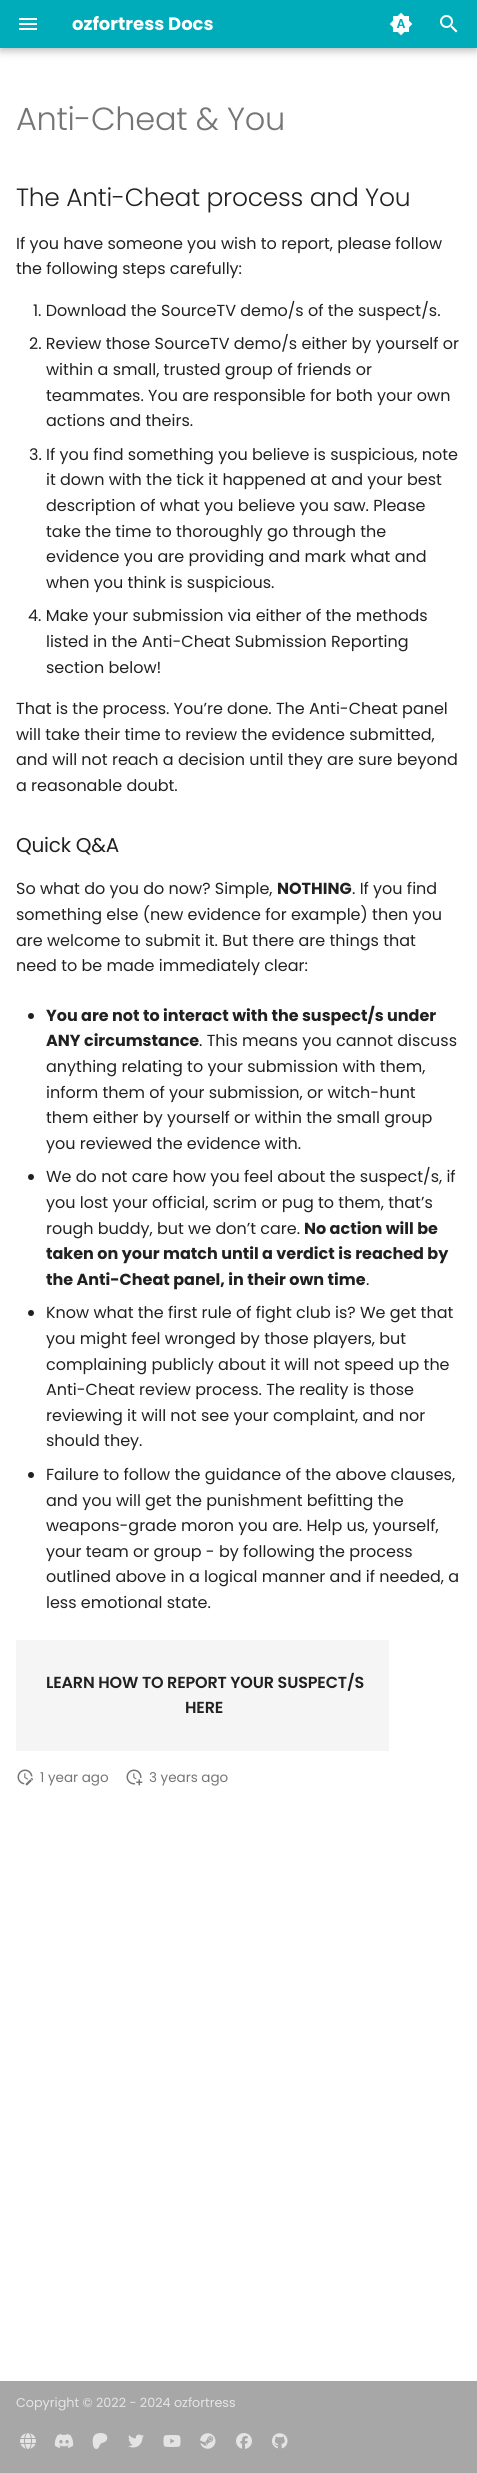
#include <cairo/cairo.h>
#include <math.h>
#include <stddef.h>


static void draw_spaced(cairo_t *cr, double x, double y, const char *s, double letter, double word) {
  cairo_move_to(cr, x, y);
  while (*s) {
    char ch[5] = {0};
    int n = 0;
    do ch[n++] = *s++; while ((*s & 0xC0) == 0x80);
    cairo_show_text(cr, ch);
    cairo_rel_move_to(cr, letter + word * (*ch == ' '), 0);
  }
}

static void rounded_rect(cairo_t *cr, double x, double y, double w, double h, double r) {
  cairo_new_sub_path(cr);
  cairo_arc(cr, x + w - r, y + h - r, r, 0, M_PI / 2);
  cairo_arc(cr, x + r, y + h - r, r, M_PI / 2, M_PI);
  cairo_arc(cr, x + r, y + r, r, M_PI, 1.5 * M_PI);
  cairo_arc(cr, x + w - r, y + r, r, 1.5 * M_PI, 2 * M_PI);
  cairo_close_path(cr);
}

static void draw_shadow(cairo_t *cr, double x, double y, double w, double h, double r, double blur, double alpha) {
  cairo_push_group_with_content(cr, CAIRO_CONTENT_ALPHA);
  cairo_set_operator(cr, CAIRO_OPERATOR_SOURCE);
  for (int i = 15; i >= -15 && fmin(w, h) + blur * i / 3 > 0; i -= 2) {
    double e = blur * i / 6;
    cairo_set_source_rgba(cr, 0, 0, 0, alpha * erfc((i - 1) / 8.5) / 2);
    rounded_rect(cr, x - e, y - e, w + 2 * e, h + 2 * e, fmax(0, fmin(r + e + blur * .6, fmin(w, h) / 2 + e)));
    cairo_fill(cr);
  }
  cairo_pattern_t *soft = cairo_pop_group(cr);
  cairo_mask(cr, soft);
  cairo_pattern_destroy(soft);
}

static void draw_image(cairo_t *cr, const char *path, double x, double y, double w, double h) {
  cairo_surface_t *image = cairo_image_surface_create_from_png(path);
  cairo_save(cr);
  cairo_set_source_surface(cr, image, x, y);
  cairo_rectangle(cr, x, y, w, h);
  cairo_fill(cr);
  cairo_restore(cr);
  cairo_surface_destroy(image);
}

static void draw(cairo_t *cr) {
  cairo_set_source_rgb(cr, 1, 1, 1);
  cairo_paint(cr);
  cairo_set_source_rgb(cr, 0, 0, 0);
  draw_shadow(cr, 0, 4, 477, 48, 0, 4, 0.2);
  draw_shadow(cr, 0, 0, 477, 48, 0, 2, 0.1);
  cairo_set_source_rgb(cr, 0, 171 / 255.0, 186 / 255.0);
  cairo_rectangle(cr, 0, 0, 477, 48);
  cairo_fill(cr);
  draw_image(cr, "images/1.png", 19, 18, 18, 12);
  draw_image(cr, "images/2.png", 389, 12, 24, 24);
  draw_image(cr, "images/3.png", 440, 15, 18, 18);
  cairo_set_source_rgb(cr, 33 / 255.0, 33 / 255.0, 33 / 255.0);
  cairo_arc(cr, 31, 1016, 3, 0, 2 * M_PI);
  cairo_fill(cr);
  cairo_arc(cr, 31, 1177, 3, 0, 2 * M_PI);
  cairo_fill(cr);
  cairo_arc(cr, 31, 1313, 3, 0, 2 * M_PI);
  cairo_fill(cr);
  cairo_arc(cr, 31, 1475, 3, 0, 2 * M_PI);
  cairo_fill(cr);
  cairo_set_source_rgb(cr, 245 / 255.0, 245 / 255.0, 245 / 255.0);
  cairo_rectangle(cr, 16, 1640, 373, 111);
  cairo_fill(cr);
  draw_image(cr, "images/4.png", 17, 1769, 17, 17);
  draw_image(cr, "images/5.png", 126, 1769, 17, 17);
  cairo_set_source_rgb(cr, 167 / 255.0, 167 / 255.0, 167 / 255.0);
  cairo_rectangle(cr, 0, 2381, 477, 92);
  cairo_fill(cr);
  draw_image(cr, "images/6.png", 20, 2433, 16, 16);
  draw_image(cr, "images/7.png", 54, 2434, 20, 14);
  draw_image(cr, "images/8.png", 92, 2433, 16, 16);
  draw_image(cr, "images/9.png", 128, 2434, 16, 14);
  draw_image(cr, "images/10.png", 163, 2435, 18, 12);
  draw_image(cr, "images/11.png", 200, 2433, 16, 16);
  draw_image(cr, "images/12.png", 236, 2433, 16, 16);
  draw_image(cr, "images/13.png", 272, 2433, 16, 16);
  cairo_select_font_face(cr, "Poppins", CAIRO_FONT_SLANT_NORMAL, CAIRO_FONT_WEIGHT_BOLD);
  cairo_set_font_size(cr, 18);
  cairo_set_source_rgb(cr, 1, 1, 1);
  cairo_move_to(cr, 72, 30);
  cairo_show_text(cr, "ozfortress Docs");
  cairo_select_font_face(cr, "Poppins Light", CAIRO_FONT_SLANT_NORMAL, CAIRO_FONT_WEIGHT_NORMAL);
  cairo_set_font_size(cr, 32);
  cairo_set_source_rgb(cr, 117 / 255.0, 117 / 255.0, 117 / 255.0);
  draw_spaced(cr, 16, 130, "Anti-Cheat & You", -0.3, 0);
  cairo_set_font_size(cr, 25);
  cairo_set_source_rgb(cr, 33 / 255.0, 33 / 255.0, 33 / 255.0);
  draw_spaced(cr, 16, 206, "The Anti-Cheat process and You", -0.25, 0);
  cairo_select_font_face(cr, "Poppins", CAIRO_FONT_SLANT_NORMAL, CAIRO_FONT_WEIGHT_NORMAL);
  cairo_set_font_size(cr, 16);
  cairo_move_to(cr, 16, 249);
  cairo_show_text(cr, "If you have someone you wish to report, please follow");
  cairo_move_to(cr, 16, 274);
  cairo_show_text(cr, "the following steps carefully:");
  cairo_move_to(cr, 33, 316);
  cairo_show_text(cr, "1. Download the SourceTV demo/s of the suspect/s.");
  cairo_move_to(cr, 29, 349);
  cairo_show_text(cr, "2. Review those SourceTV demo/s either by yourself or");
  cairo_move_to(cr, 46, 375);
  cairo_show_text(cr, "within a small, trusted group of friends or");
  cairo_move_to(cr, 46, 401);
  cairo_show_text(cr, "teammates. You are responsible for both your own");
  cairo_move_to(cr, 46, 426);
  cairo_show_text(cr, "actions and theirs.");
  cairo_move_to(cr, 29, 460);
  cairo_show_text(cr, "3. If you find something you believe is suspicious, note");
  cairo_move_to(cr, 46, 485);
  cairo_show_text(cr, "it down with the tick it happened at and your best");
  cairo_move_to(cr, 46, 511);
  cairo_show_text(cr, "description of what you believe you saw. Please");
  cairo_move_to(cr, 46, 537);
  cairo_show_text(cr, "take the time to thoroughly go through the");
  cairo_move_to(cr, 46, 562);
  cairo_show_text(cr, "evidence you are providing and mark what and");
  cairo_move_to(cr, 46, 588);
  cairo_show_text(cr, "when you think is suspicious.");
  cairo_move_to(cr, 28, 621);
  cairo_show_text(cr, "4. Make your submission via either of the methods");
  cairo_move_to(cr, 46, 647);
  cairo_show_text(cr, "listed in the Anti-Cheat Submission Reporting");
  cairo_move_to(cr, 46, 673);
  cairo_show_text(cr, "section below!");
  cairo_move_to(cr, 16, 714);
  cairo_show_text(cr, "That is the process. You’re done. The Anti-Cheat panel");
  cairo_move_to(cr, 16, 740);
  cairo_show_text(cr, "will take their time to review the evidence submitted,");
  cairo_move_to(cr, 16, 765);
  cairo_show_text(cr, "and will not reach a decision until they are sure beyond");
  cairo_move_to(cr, 16, 791);
  cairo_show_text(cr, "a reasonable doubt.");
  cairo_set_font_size(cr, 20);
  draw_spaced(cr, 16, 852, "Quick Q&A", -0.25, 0);
  cairo_set_font_size(cr, 16);
  cairo_move_to(cr, 16, 894);
  cairo_show_text(cr, "So what do you do now? Simple,");
  cairo_select_font_face(cr, "Poppins", CAIRO_FONT_SLANT_NORMAL, CAIRO_FONT_WEIGHT_BOLD);
  cairo_move_to(cr, 277, 894);
  cairo_show_text(cr, "NOTHING");
  cairo_select_font_face(cr, "Poppins", CAIRO_FONT_SLANT_NORMAL, CAIRO_FONT_WEIGHT_NORMAL);
  cairo_move_to(cr, 352, 894);
  cairo_show_text(cr, ". If you find");
  cairo_move_to(cr, 16, 920);
  cairo_show_text(cr, "something else (new evidence for example) then you");
  cairo_move_to(cr, 16, 946);
  cairo_show_text(cr, "are welcome to submit it. But there are things that");
  cairo_move_to(cr, 16, 971);
  cairo_show_text(cr, "need to be made immediately clear:");
  cairo_select_font_face(cr, "Poppins", CAIRO_FONT_SLANT_NORMAL, CAIRO_FONT_WEIGHT_BOLD);
  cairo_move_to(cr, 46, 1021);
  cairo_show_text(cr, "You are not to interact with the suspect/s under");
  cairo_move_to(cr, 46, 1046);
  cairo_show_text(cr, "ANY circumstance");
  cairo_select_font_face(cr, "Poppins", CAIRO_FONT_SLANT_NORMAL, CAIRO_FONT_WEIGHT_NORMAL);
  cairo_move_to(cr, 199, 1046);
  cairo_show_text(cr, ". This means you cannot discuss");
  cairo_move_to(cr, 46, 1072);
  cairo_show_text(cr, "anything relating to your submission with them,");
  cairo_move_to(cr, 46, 1098);
  cairo_show_text(cr, "inform them of your submission, or witch-hunt");
  cairo_move_to(cr, 46, 1123);
  cairo_show_text(cr, "them either by yourself or within the small group");
  cairo_move_to(cr, 46, 1149);
  cairo_show_text(cr, "you reviewed the evidence with.");
  cairo_move_to(cr, 46, 1182);
  cairo_show_text(cr, "We do not care how you feel about the suspect/s, if");
  cairo_move_to(cr, 46, 1208);
  cairo_show_text(cr, "you lost your official, scrim or pug to them, that’s");
  cairo_move_to(cr, 46, 1234);
  cairo_show_text(cr, "rough buddy, but we don’t care.");
  cairo_select_font_face(cr, "Poppins", CAIRO_FONT_SLANT_NORMAL, CAIRO_FONT_WEIGHT_BOLD);
  cairo_move_to(cr, 304, 1234);
  cairo_show_text(cr, "No action will be");
  cairo_move_to(cr, 46, 1259);
  cairo_show_text(cr, "taken on your match until a verdict is reached by");
  cairo_move_to(cr, 46, 1285);
  cairo_show_text(cr, "the Anti-Cheat panel, in their own time");
  cairo_select_font_face(cr, "Poppins", CAIRO_FONT_SLANT_NORMAL, CAIRO_FONT_WEIGHT_NORMAL);
  cairo_move_to(cr, 366, 1285);
  cairo_show_text(cr, ".");
  cairo_move_to(cr, 46, 1318);
  cairo_show_text(cr, "Know what the first rule of fight club is? We get that");
  cairo_move_to(cr, 46, 1344);
  cairo_show_text(cr, "you might feel wronged by those players, but");
  cairo_move_to(cr, 46, 1370);
  cairo_show_text(cr, "complaining publicly about it will not speed up the");
  cairo_move_to(cr, 46, 1395);
  cairo_show_text(cr, "Anti-Cheat review process. The reality is those");
  cairo_move_to(cr, 46, 1421);
  cairo_show_text(cr, "reviewing it will not see your complaint, and nor");
  cairo_move_to(cr, 46, 1446);
  cairo_show_text(cr, "should they.");
  cairo_move_to(cr, 46, 1480);
  cairo_show_text(cr, "Failure to follow the guidance of the above clauses,");
  cairo_move_to(cr, 46, 1506);
  cairo_show_text(cr, "and you will get the punishment befitting the");
  cairo_move_to(cr, 46, 1531);
  cairo_show_text(cr, "weapons-grade moron you are. Help us, yourself,");
  cairo_move_to(cr, 46, 1557);
  cairo_show_text(cr, "your team or group - by following the process");
  cairo_move_to(cr, 46, 1582);
  cairo_show_text(cr, "outlined above in a logical manner and if needed, a");
  cairo_move_to(cr, 46, 1608);
  cairo_show_text(cr, "less emotional state.");
  cairo_select_font_face(cr, "Poppins SemiBold", CAIRO_FONT_SLANT_NORMAL, CAIRO_FONT_WEIGHT_NORMAL);
  draw_spaced(cr, 46, 1688, "LEARN HOW TO REPORT YOUR SUSPECT/S", -0.15, 0);
  draw_spaced(cr, 185, 1713, "HERE", -0.15, 0);
  cairo_select_font_face(cr, "Poppins", CAIRO_FONT_SLANT_NORMAL, CAIRO_FONT_WEIGHT_NORMAL);
  cairo_set_font_size(cr, 13.5);
  cairo_set_source_rgb(cr, 117 / 255.0, 117 / 255.0, 117 / 255.0);
  cairo_move_to(cr, 40, 1782);
  cairo_show_text(cr, "1 year ago");
  cairo_move_to(cr, 149, 1782);
  cairo_show_text(cr, "3 years ago");
  cairo_set_font_size(cr, 12.75);
  cairo_set_source_rgb(cr, 229 / 255.0, 229 / 255.0, 229 / 255.0);
  cairo_move_to(cr, 16, 2407);
  cairo_show_text(cr, "Copyright © 2022 - 2024 ozfortress");
}

int main(void) {
  cairo_surface_t *surface = cairo_image_surface_create(CAIRO_FORMAT_RGB24, 477, 2473);
  cairo_t *cr = cairo_create(surface);
  cairo_font_options_t *options = cairo_font_options_create();
  cairo_font_options_set_hint_metrics(options, CAIRO_HINT_METRICS_OFF);
  cairo_font_options_set_hint_style(options, CAIRO_HINT_STYLE_NONE);
  cairo_set_font_options(cr, options);
  cairo_set_miter_limit(cr, 4);
  draw(cr);
  cairo_surface_write_to_png(surface, "out.png");
  cairo_font_options_destroy(options);
  cairo_destroy(cr);
  cairo_surface_destroy(surface);
  return 0;
}
